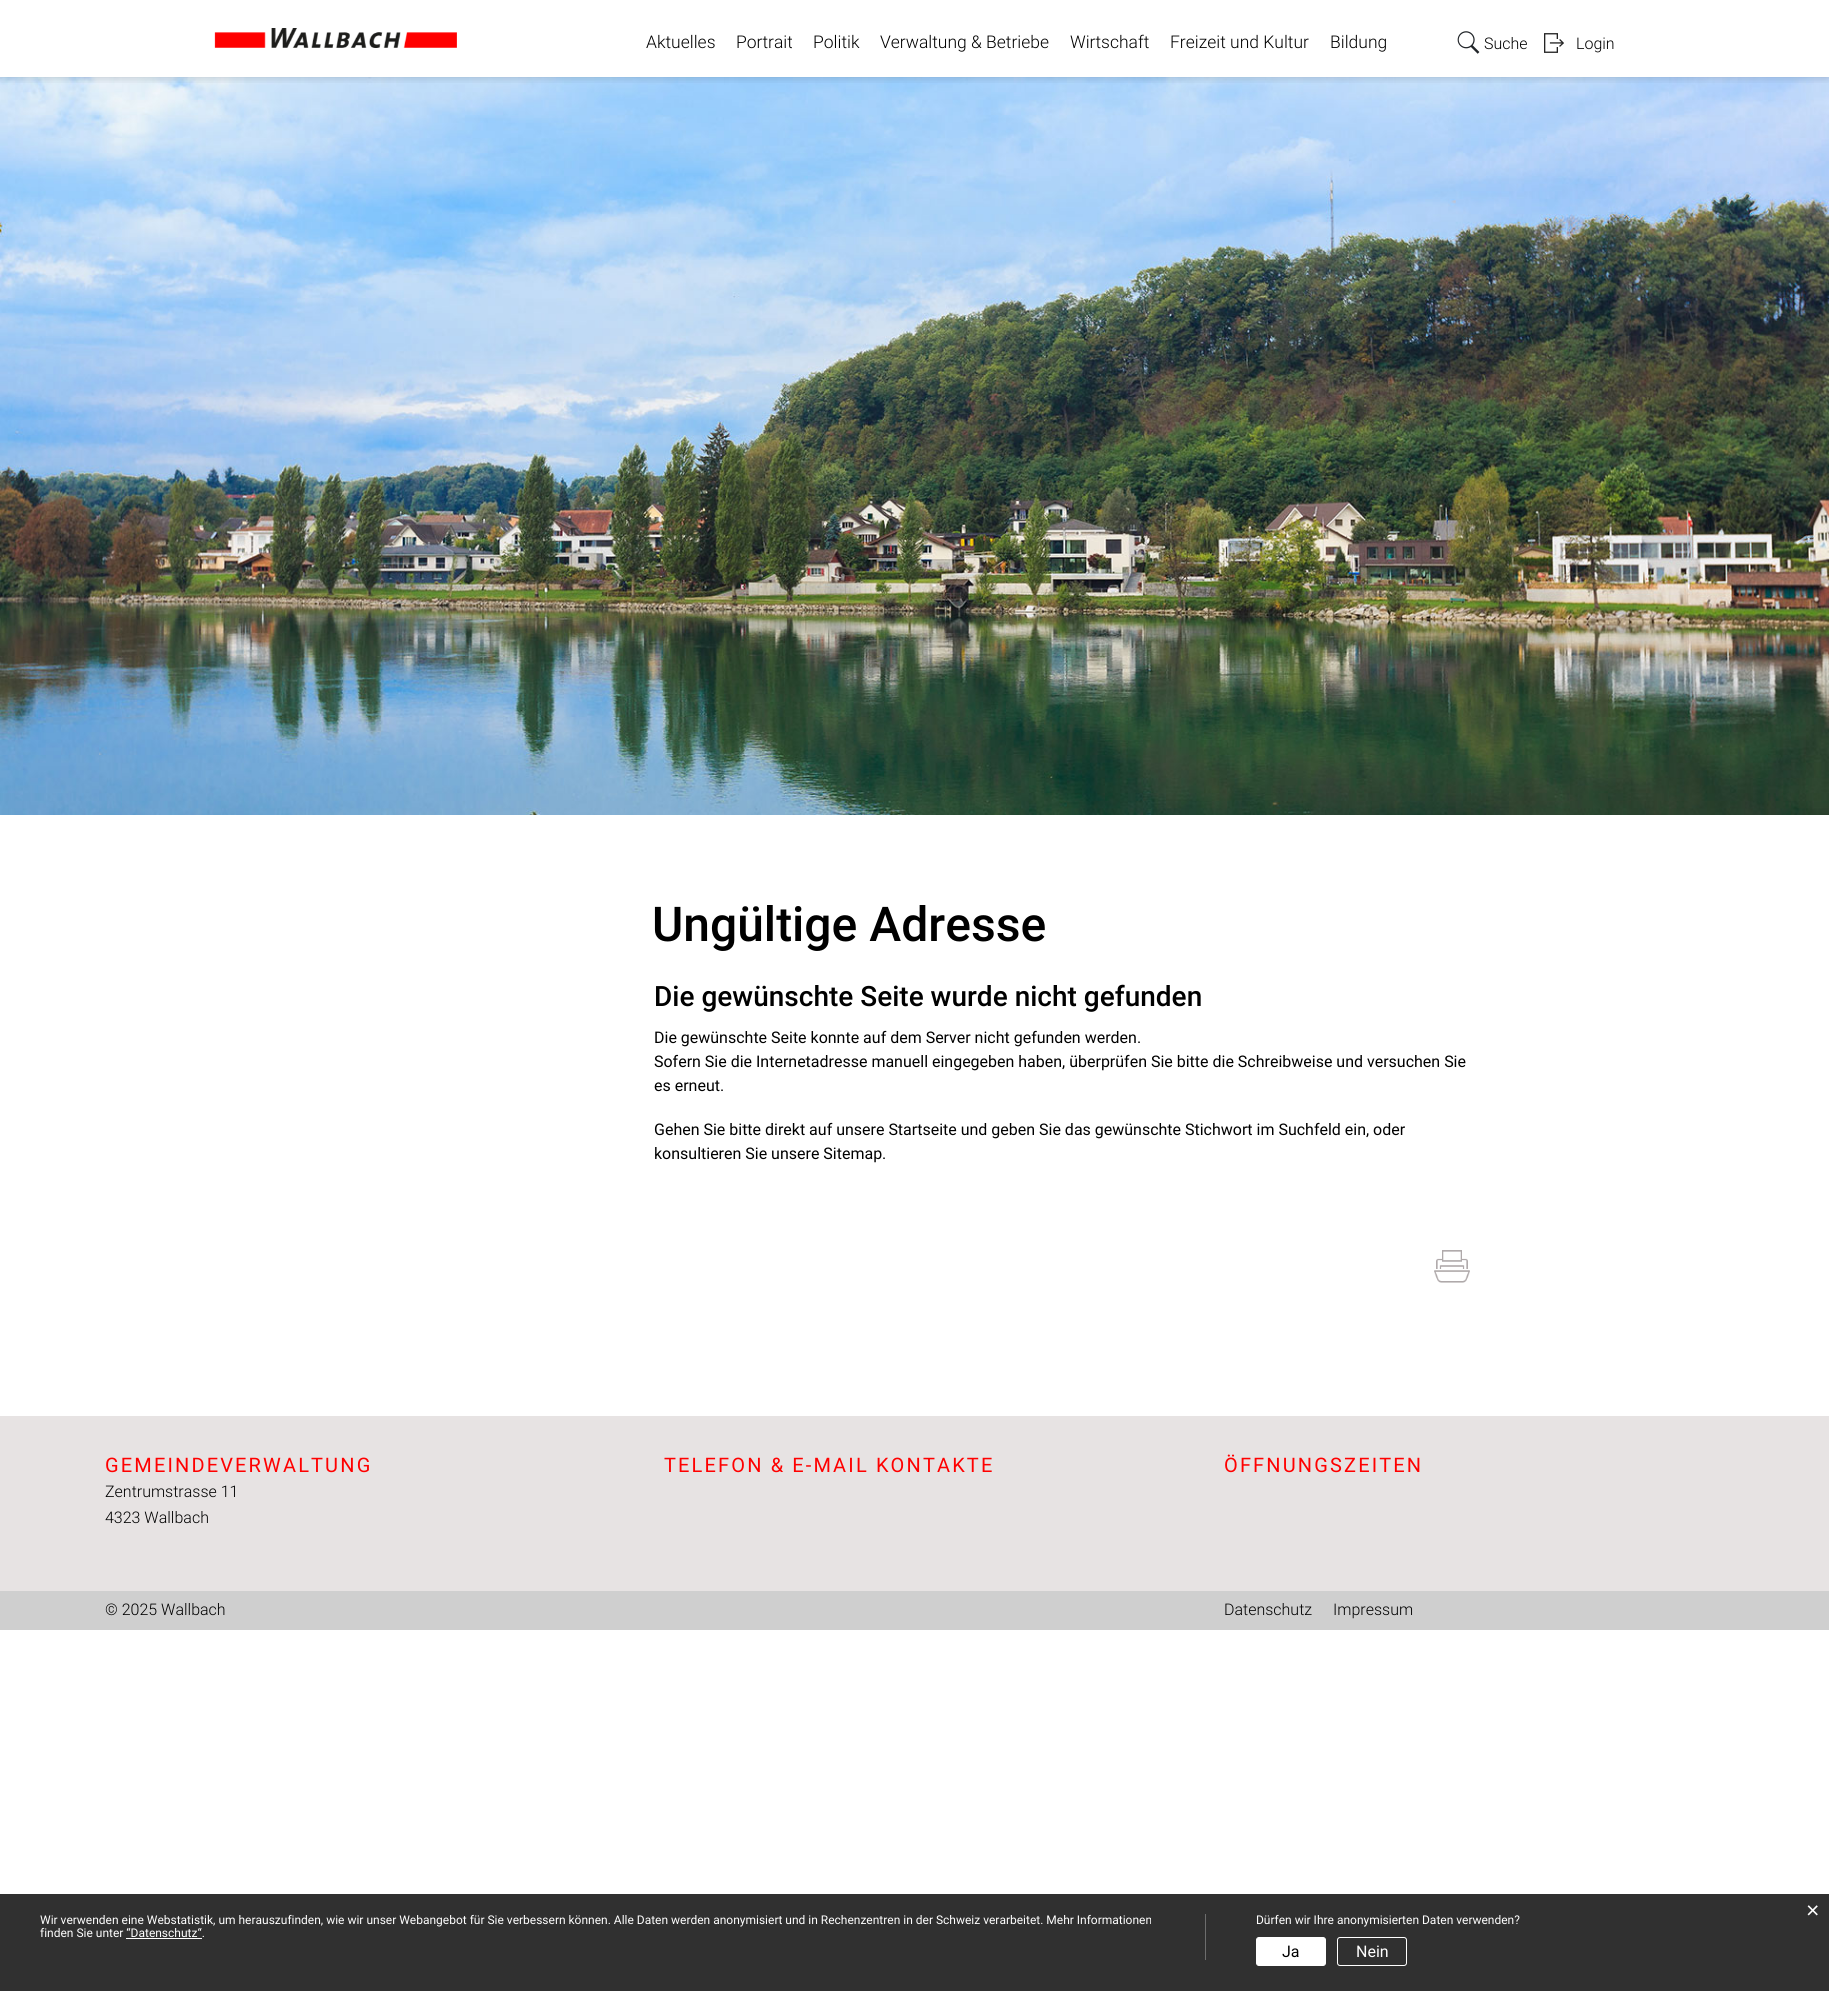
#include <cairo/cairo.h>
#include <math.h>
#include <stddef.h>


static void draw_spaced(cairo_t *cr, double x, double y, const char *s, double letter, double word) {
  cairo_move_to(cr, x, y);
  while (*s) {
    char ch[5] = {0};
    int n = 0;
    do ch[n++] = *s++; while ((*s & 0xC0) == 0x80);
    cairo_show_text(cr, ch);
    cairo_rel_move_to(cr, letter + word * (*ch == ' '), 0);
  }
}

static void rounded_rect(cairo_t *cr, double x, double y, double w, double h, double r) {
  cairo_new_sub_path(cr);
  cairo_arc(cr, x + w - r, y + h - r, r, 0, M_PI / 2);
  cairo_arc(cr, x + r, y + h - r, r, M_PI / 2, M_PI);
  cairo_arc(cr, x + r, y + r, r, M_PI, 1.5 * M_PI);
  cairo_arc(cr, x + w - r, y + r, r, 1.5 * M_PI, 2 * M_PI);
  cairo_close_path(cr);
}

static void draw_shadow(cairo_t *cr, double x, double y, double w, double h, double r, double blur, double alpha) {
  cairo_push_group_with_content(cr, CAIRO_CONTENT_ALPHA);
  cairo_set_operator(cr, CAIRO_OPERATOR_SOURCE);
  for (int i = 15; i >= -15 && fmin(w, h) + blur * i / 3 > 0; i -= 2) {
    double e = blur * i / 6;
    cairo_set_source_rgba(cr, 0, 0, 0, alpha * erfc((i - 1) / 8.5) / 2);
    rounded_rect(cr, x - e, y - e, w + 2 * e, h + 2 * e, fmax(0, fmin(r + e + blur * .6, fmin(w, h) / 2 + e)));
    cairo_fill(cr);
  }
  cairo_pattern_t *soft = cairo_pop_group(cr);
  cairo_mask(cr, soft);
  cairo_pattern_destroy(soft);
}

static void draw_image(cairo_t *cr, const char *path, double x, double y, double w, double h) {
  cairo_surface_t *image = cairo_image_surface_create_from_png(path);
  cairo_save(cr);
  cairo_set_source_surface(cr, image, x, y);
  cairo_rectangle(cr, x, y, w, h);
  cairo_fill(cr);
  cairo_restore(cr);
  cairo_surface_destroy(image);
}

static void draw(cairo_t *cr) {
  cairo_set_source_rgb(cr, 1, 1, 1);
  cairo_paint(cr);
  draw_image(cr, "images/4.png", 0, 77, 1829, 738);
  cairo_save(cr);
  cairo_rectangle(cr, 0, 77, 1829, 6);
  cairo_clip(cr);
  cairo_set_source_rgb(cr, 0, 0, 0);
  draw_shadow(cr, 0, 0, 1829, 77, 0, 5, 0.2);
  cairo_restore(cr);
  draw_image(cr, "images/1.png", 214, 28, 243, 20);
  draw_image(cr, "images/2.png", 1457, 31, 23, 23);
  draw_image(cr, "images/3.png", 1544, 33, 20, 20);
  draw_image(cr, "images/5.png", 1434, 1250, 36, 33);
  cairo_set_source_rgb(cr, 231 / 255.0, 227 / 255.0, 227 / 255.0);
  cairo_rectangle(cr, 0, 1416, 1829, 175);
  cairo_fill(cr);
  cairo_set_source_rgb(cr, 207 / 255.0, 207 / 255.0, 207 / 255.0);
  cairo_rectangle(cr, 0, 1591, 1829, 39);
  cairo_fill(cr);
  cairo_set_source_rgb(cr, 48 / 255.0, 48 / 255.0, 48 / 255.0);
  cairo_rectangle(cr, 0, 1894, 1829, 97);
  cairo_fill(cr);
  cairo_set_source_rgb(cr, 109 / 255.0, 109 / 255.0, 109 / 255.0);
  cairo_rectangle(cr, 1205, 1914, 1, 46);
  cairo_fill(cr);
  cairo_set_source_rgb(cr, 1, 1, 1);
  cairo_rectangle(cr, 126, 1938, 76, 1);
  cairo_fill(cr);
  rounded_rect(cr, 1256.5, 1937.5, 69, 28, 2.5);
  cairo_fill_preserve(cr);
  cairo_set_line_width(cr, 1);
  cairo_stroke(cr);
  rounded_rect(cr, 1337.5, 1937.5, 69, 28, 2.5);
  cairo_stroke(cr);
  cairo_select_font_face(cr, "Roboto Light", CAIRO_FONT_SLANT_NORMAL, CAIRO_FONT_WEIGHT_NORMAL);
  cairo_set_font_size(cr, 17.5);
  cairo_set_source_rgb(cr, 0, 0, 0);
  cairo_move_to(cr, 646, 48);
  cairo_show_text(cr, "Aktuelles");
  cairo_move_to(cr, 736, 48);
  cairo_show_text(cr, "Portrait");
  cairo_move_to(cr, 813, 48);
  cairo_show_text(cr, "Politik");
  cairo_move_to(cr, 880, 48);
  cairo_show_text(cr, "Verwaltung & Betriebe");
  cairo_move_to(cr, 1070, 48);
  cairo_show_text(cr, "Wirtschaft");
  cairo_move_to(cr, 1170, 48);
  cairo_show_text(cr, "Freizeit und Kultur");
  cairo_move_to(cr, 1330, 48);
  cairo_show_text(cr, "Bildung");
  cairo_set_font_size(cr, 16);
  cairo_move_to(cr, 1484, 49);
  cairo_show_text(cr, "Suche");
  cairo_move_to(cr, 1576, 49);
  cairo_show_text(cr, "Login");
  cairo_select_font_face(cr, "Roboto Medium", CAIRO_FONT_SLANT_NORMAL, CAIRO_FONT_WEIGHT_NORMAL);
  cairo_set_font_size(cr, 48);
  cairo_move_to(cr, 652, 941);
  cairo_show_text(cr, "Ungültige Adresse");
  cairo_set_font_size(cr, 28);
  cairo_move_to(cr, 654, 1006);
  cairo_show_text(cr, "Die gewünschte Seite wurde nicht gefunden");
  cairo_select_font_face(cr, "Roboto", CAIRO_FONT_SLANT_NORMAL, CAIRO_FONT_WEIGHT_NORMAL);
  cairo_set_font_size(cr, 16);
  cairo_move_to(cr, 654, 1043);
  cairo_show_text(cr, "Die gewünschte Seite konnte auf dem Server nicht gefunden werden.");
  cairo_move_to(cr, 654, 1067);
  cairo_show_text(cr, "Sofern Sie die Internetadresse manuell eingegeben haben, überprüfen Sie bitte die Schreibweise und versuchen Sie");
  cairo_move_to(cr, 654, 1091);
  cairo_show_text(cr, "es erneut.");
  cairo_move_to(cr, 654, 1135);
  cairo_show_text(cr, "Gehen Sie bitte direkt auf unsere Startseite und geben Sie das gewünschte Stichwort im Suchfeld ein, oder");
  cairo_move_to(cr, 654, 1159);
  cairo_show_text(cr, "konsultieren Sie unsere Sitemap.");
  cairo_set_font_size(cr, 20);
  cairo_set_source_rgb(cr, 1, 0, 0);
  draw_spaced(cr, 105, 1472, "GEMEINDEVERWALTUNG", 2.15, 0);
  cairo_select_font_face(cr, "Roboto Light", CAIRO_FONT_SLANT_NORMAL, CAIRO_FONT_WEIGHT_NORMAL);
  cairo_set_font_size(cr, 16);
  cairo_set_source_rgb(cr, 0, 0, 0);
  cairo_move_to(cr, 105, 1497);
  cairo_show_text(cr, "Zentrumstrasse 11");
  cairo_move_to(cr, 105, 1523);
  cairo_show_text(cr, "4323 Wallbach");
  cairo_select_font_face(cr, "Roboto", CAIRO_FONT_SLANT_NORMAL, CAIRO_FONT_WEIGHT_NORMAL);
  cairo_set_font_size(cr, 20);
  cairo_set_source_rgb(cr, 1, 0, 0);
  draw_spaced(cr, 664, 1472, "TELEFON & E-MAIL KONTAKTE", 2.15, 0);
  draw_spaced(cr, 1224, 1472, "ÖFFNUNGSZEITEN", 2.15, 0);
  cairo_select_font_face(cr, "Roboto Light", CAIRO_FONT_SLANT_NORMAL, CAIRO_FONT_WEIGHT_NORMAL);
  cairo_set_font_size(cr, 16);
  cairo_set_source_rgb(cr, 0, 0, 0);
  cairo_move_to(cr, 105, 1615);
  cairo_show_text(cr, "© 2025 Wallbach");
  cairo_move_to(cr, 1224, 1615);
  cairo_show_text(cr, "Datenschutz");
  cairo_move_to(cr, 1333, 1615);
  cairo_show_text(cr, "Impressum");
  cairo_select_font_face(cr, "Liberation Sans", CAIRO_FONT_SLANT_NORMAL, CAIRO_FONT_WEIGHT_NORMAL);
  cairo_set_font_size(cr, 23);
  cairo_set_source_rgb(cr, 1, 1, 1);
  cairo_move_to(cr, 1806, 1918);
  cairo_show_text(cr, "×");
  cairo_select_font_face(cr, "Roboto", CAIRO_FONT_SLANT_NORMAL, CAIRO_FONT_WEIGHT_NORMAL);
  cairo_set_font_size(cr, 12);
  cairo_move_to(cr, 40, 1924);
  cairo_show_text(cr, "Wir verwenden eine Webstatistik, um herauszufinden, wie wir unser Webangebot für Sie verbessern können. Alle Daten werden anonymisiert und in Rechenzentren in der Schweiz verarbeitet. Mehr Informationen");
  cairo_move_to(cr, 40, 1937);
  cairo_show_text(cr, "finden Sie unter “Datenschutz“.");
  cairo_move_to(cr, 1256, 1924);
  cairo_show_text(cr, "Dürfen wir Ihre anonymisierten Daten verwenden?");
  cairo_set_font_size(cr, 16);
  cairo_set_source_rgb(cr, 0, 0, 0);
  cairo_move_to(cr, 1282, 1957);
  cairo_show_text(cr, "Ja");
  cairo_set_source_rgb(cr, 1, 1, 1);
  cairo_move_to(cr, 1356, 1957);
  cairo_show_text(cr, "Nein");
}

int main(void) {
  cairo_surface_t *surface = cairo_image_surface_create(CAIRO_FORMAT_RGB24, 1829, 1991);
  cairo_t *cr = cairo_create(surface);
  cairo_font_options_t *options = cairo_font_options_create();
  cairo_font_options_set_hint_metrics(options, CAIRO_HINT_METRICS_OFF);
  cairo_font_options_set_hint_style(options, CAIRO_HINT_STYLE_NONE);
  cairo_set_font_options(cr, options);
  cairo_set_miter_limit(cr, 4);
  draw(cr);
  cairo_surface_write_to_png(surface, "out.png");
  cairo_font_options_destroy(options);
  cairo_destroy(cr);
  cairo_surface_destroy(surface);
  return 0;
}
